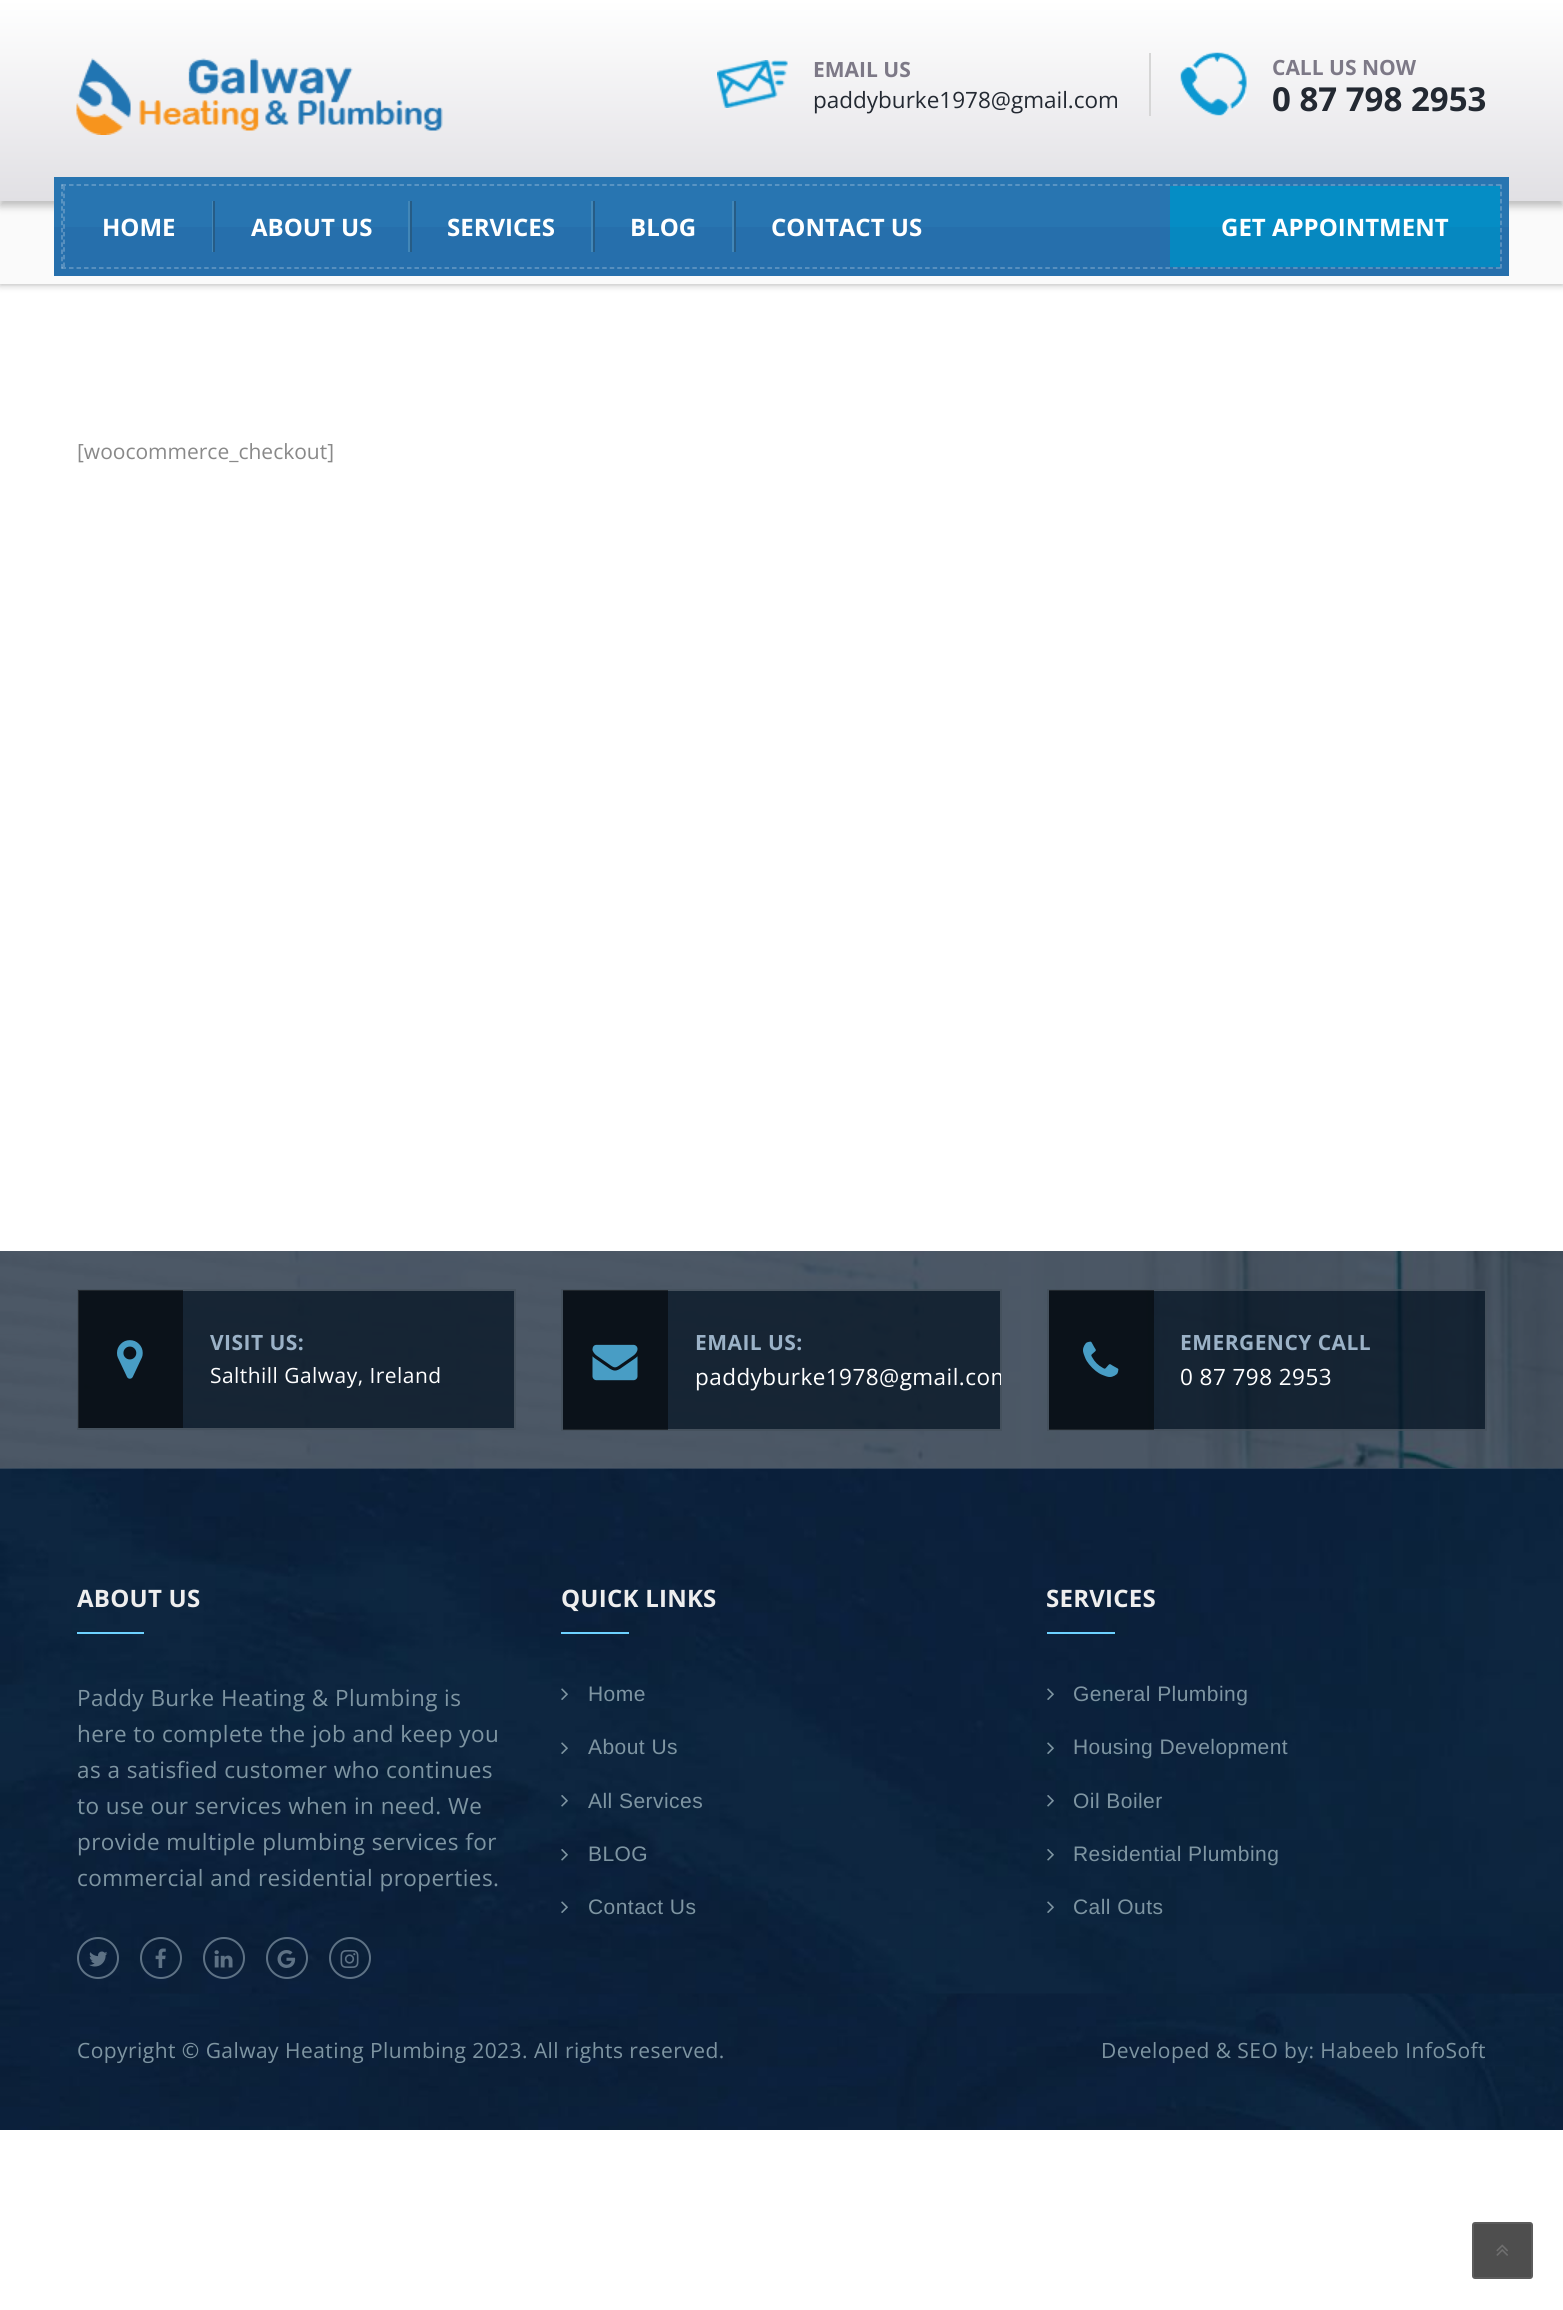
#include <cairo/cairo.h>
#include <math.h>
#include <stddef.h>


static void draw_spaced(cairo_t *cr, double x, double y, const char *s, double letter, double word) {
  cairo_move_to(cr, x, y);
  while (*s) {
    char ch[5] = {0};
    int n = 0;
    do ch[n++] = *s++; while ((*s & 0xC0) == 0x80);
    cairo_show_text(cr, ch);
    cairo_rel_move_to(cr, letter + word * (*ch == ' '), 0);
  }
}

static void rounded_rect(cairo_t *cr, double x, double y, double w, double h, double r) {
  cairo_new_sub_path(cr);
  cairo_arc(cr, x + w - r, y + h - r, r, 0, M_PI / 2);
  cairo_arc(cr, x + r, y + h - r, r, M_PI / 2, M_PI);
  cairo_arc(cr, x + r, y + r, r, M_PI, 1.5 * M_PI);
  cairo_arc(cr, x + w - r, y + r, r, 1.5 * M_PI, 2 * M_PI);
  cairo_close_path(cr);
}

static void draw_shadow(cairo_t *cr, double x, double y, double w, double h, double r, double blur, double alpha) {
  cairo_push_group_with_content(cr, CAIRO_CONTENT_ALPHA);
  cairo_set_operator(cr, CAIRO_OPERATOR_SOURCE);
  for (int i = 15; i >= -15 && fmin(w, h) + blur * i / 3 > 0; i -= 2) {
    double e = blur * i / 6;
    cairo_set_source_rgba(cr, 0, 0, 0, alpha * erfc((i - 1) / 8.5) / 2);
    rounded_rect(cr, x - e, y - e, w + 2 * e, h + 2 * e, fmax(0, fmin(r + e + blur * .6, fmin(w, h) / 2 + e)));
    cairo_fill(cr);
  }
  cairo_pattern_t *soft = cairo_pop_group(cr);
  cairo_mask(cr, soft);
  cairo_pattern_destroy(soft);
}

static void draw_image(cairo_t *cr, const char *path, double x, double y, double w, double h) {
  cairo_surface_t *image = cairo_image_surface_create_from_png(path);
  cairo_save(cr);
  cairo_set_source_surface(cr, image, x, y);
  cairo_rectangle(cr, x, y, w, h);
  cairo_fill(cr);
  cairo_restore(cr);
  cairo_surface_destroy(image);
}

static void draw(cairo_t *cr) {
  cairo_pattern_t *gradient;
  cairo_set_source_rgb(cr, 1, 1, 1);
  cairo_paint(cr);
  cairo_set_source_rgb(cr, 0, 0, 0);
  draw_shadow(cr, 0, 201, 1563, 83, 0, 4, 0.35);
  cairo_set_source_rgb(cr, 250 / 255.0, 250 / 255.0, 250 / 255.0);
  cairo_rectangle(cr, 0, 201, 1563, 83);
  cairo_fill(cr);
  cairo_set_source_rgb(cr, 0, 0, 0);
  draw_shadow(cr, 0, 5, 1563, 201, 0, 4, 0.25);
  gradient = cairo_pattern_create_linear(782, 201, 782, 0);
  cairo_pattern_add_color_stop_rgba(gradient, 0, 225 / 255.0, 224 / 255.0, 228 / 255.0, 1);
  cairo_pattern_add_color_stop_rgba(gradient, 1, 1, 1, 1, 1);
  cairo_set_source(cr, gradient);
  cairo_pattern_destroy(gradient);
  cairo_rectangle(cr, 0, 0, 1563, 201);
  cairo_fill(cr);
  draw_image(cr, "images/1.png", 76, 58, 367, 77);
  cairo_set_source_rgb(cr, 214 / 255.0, 214 / 255.0, 214 / 255.0);
  cairo_rectangle(cr, 1149, 53, 2, 63);
  cairo_fill(cr);
  draw_image(cr, "images/2.png", 717, 60, 71, 48);
  draw_image(cr, "images/3.png", 1180, 52, 67, 64);
  cairo_set_source_rgb(cr, 40 / 255.0, 117 / 255.0, 177 / 255.0);
  cairo_rectangle(cr, 54, 177, 1455, 50);
  cairo_fill(cr);
  cairo_set_source_rgb(cr, 38 / 255.0, 111 / 255.0, 172 / 255.0);
  cairo_rectangle(cr, 54, 227, 1455, 49);
  cairo_fill(cr);
  cairo_new_path(cr);
  cairo_move_to(cr, 61.5, 185);
  cairo_line_to(cr, 1501.5, 185);
  cairo_set_source_rgb(cr, 105 / 255.0, 158 / 255.0, 200 / 255.0);
  cairo_set_line_width(cr, 1.5);
  cairo_set_dash(cr, (double[]){4.5, 3.01}, 2, 0);
  cairo_stroke(cr);
  cairo_new_path(cr);
  cairo_move_to(cr, 1501, 184.5);
  cairo_line_to(cr, 1501, 268.5);
  cairo_set_source_rgba(cr, 1, 1, 1, 0.3);
  cairo_set_dash(cr, (double[]){4.5, 2.73}, 2, 0);
  cairo_stroke(cr);
  cairo_new_path(cr);
  cairo_move_to(cr, 61.5, 268);
  cairo_line_to(cr, 1501.5, 268);
  cairo_set_source_rgb(cr, 103 / 255.0, 154 / 255.0, 197 / 255.0);
  cairo_set_dash(cr, (double[]){4.5, 3.01}, 2, 0);
  cairo_stroke(cr);
  cairo_new_path(cr);
  cairo_move_to(cr, 62, 184.5);
  cairo_line_to(cr, 62, 268.5);
  cairo_set_source_rgba(cr, 1, 1, 1, 0.3);
  cairo_set_dash(cr, (double[]){4.5, 2.73}, 2, 0);
  cairo_stroke(cr);
  cairo_new_path(cr);
  cairo_move_to(cr, 64, 186);
  cairo_line_to(cr, 64, 267);
  cairo_set_source_rgb(cr, 104 / 255.0, 154 / 255.0, 197 / 255.0);
  cairo_set_dash(cr, (double[]){4.5, 3.15}, 2, 0);
  cairo_stroke(cr);
  cairo_set_source_rgb(cr, 66 / 255.0, 135 / 255.0, 184 / 255.0);
  cairo_rectangle(cr, 212, 201, 1, 51);
  cairo_fill(cr);
  cairo_set_source_rgb(cr, 38 / 255.0, 92 / 255.0, 134 / 255.0);
  cairo_rectangle(cr, 213, 201, 2, 51);
  cairo_fill(cr);
  cairo_set_source_rgb(cr, 66 / 255.0, 135 / 255.0, 184 / 255.0);
  cairo_rectangle(cr, 408, 201, 2, 51);
  cairo_fill(cr);
  cairo_set_source_rgb(cr, 38 / 255.0, 92 / 255.0, 134 / 255.0);
  cairo_rectangle(cr, 410, 201, 2, 51);
  cairo_fill(cr);
  cairo_set_source_rgb(cr, 66 / 255.0, 135 / 255.0, 184 / 255.0);
  cairo_rectangle(cr, 591, 201, 2, 51);
  cairo_fill(cr);
  cairo_set_source_rgb(cr, 38 / 255.0, 92 / 255.0, 134 / 255.0);
  cairo_rectangle(cr, 593, 201, 2, 51);
  cairo_fill(cr);
  cairo_set_source_rgb(cr, 66 / 255.0, 135 / 255.0, 184 / 255.0);
  cairo_rectangle(cr, 732, 201, 2, 51);
  cairo_fill(cr);
  cairo_set_source_rgb(cr, 38 / 255.0, 92 / 255.0, 134 / 255.0);
  cairo_rectangle(cr, 734, 201, 2, 51);
  cairo_fill(cr);
  cairo_set_source_rgb(cr, 5 / 255.0, 141 / 255.0, 197 / 255.0);
  cairo_rectangle(cr, 1170, 186, 330, 41);
  cairo_fill(cr);
  cairo_set_source_rgb(cr, 6 / 255.0, 136 / 255.0, 192 / 255.0);
  cairo_rectangle(cr, 1170, 227, 330, 40);
  cairo_fill(cr);
  draw_image(cr, "images/4.png", 0, 1251, 1563, 218);
  cairo_set_source_rgba(cr, 1 / 255.0, 17 / 255.0, 32 / 255.0, 0.7);
  cairo_rectangle(cr, 78, 1290, 437, 139);
  cairo_fill_preserve(cr);
  cairo_set_source_rgb(cr, 69 / 255.0, 81 / 255.0, 93 / 255.0);
  cairo_set_line_width(cr, 2);
  cairo_set_dash(cr, NULL, 0, 0);
  cairo_stroke(cr);
  cairo_set_source_rgba(cr, 0, 0, 0, 0.5);
  cairo_rectangle(cr, 78, 1290, 105, 138);
  cairo_fill(cr);
  draw_image(cr, "images/5.png", 117, 1340, 26, 39);
  cairo_set_source_rgba(cr, 1 / 255.0, 17 / 255.0, 32 / 255.0, 0.7);
  cairo_rectangle(cr, 561, 1289, 441, 142);
  cairo_fill(cr);
  cairo_rectangle(cr, 562, 1290, 439, 140);
  cairo_set_source_rgba(cr, 1, 1, 1, 0.2);
  cairo_stroke(cr);
  cairo_set_source_rgba(cr, 0, 0, 0, 0.5);
  cairo_rectangle(cr, 563, 1290, 105, 140);
  cairo_fill(cr);
  draw_image(cr, "images/6.png", 592, 1344, 46, 37);
  cairo_set_source_rgba(cr, 1 / 255.0, 17 / 255.0, 32 / 255.0, 0.7);
  cairo_rectangle(cr, 1047, 1289, 440, 142);
  cairo_fill(cr);
  cairo_rectangle(cr, 1048, 1290, 438, 140);
  cairo_set_source_rgba(cr, 1, 1, 1, 0.2);
  cairo_stroke(cr);
  cairo_set_source_rgba(cr, 0, 0, 0, 0.5);
  cairo_rectangle(cr, 1049, 1290, 105, 140);
  cairo_fill(cr);
  draw_image(cr, "images/7.png", 1083, 1341, 36, 36);
  draw_image(cr, "images/8.png", 0, 1468, 1563, 662);
  draw_image(cr, "images/9.png", 0, 1468, 1563, 526);
  cairo_set_source_rgb(cr, 109 / 255.0, 209 / 255.0, 1);
  cairo_rectangle(cr, 77, 1632, 67, 2);
  cairo_fill(cr);
  cairo_arc(cr, 98, 1958, 20, 0, 2 * M_PI);
  cairo_set_source_rgb(cr, 94 / 255.0, 114 / 255.0, 133 / 255.0);
  cairo_stroke(cr);
  draw_image(cr, "images/10.png", 89, 1951, 19, 16);
  cairo_arc(cr, 161, 1958, 20, 0, 2 * M_PI);
  cairo_stroke(cr);
  draw_image(cr, "images/11.png", 155, 1948, 11, 20);
  cairo_arc(cr, 224, 1958, 20, 0, 2 * M_PI);
  cairo_stroke(cr);
  draw_image(cr, "images/12.png", 214, 1950, 19, 18);
  cairo_arc(cr, 287, 1958, 20, 0, 2 * M_PI);
  cairo_stroke(cr);
  draw_image(cr, "images/13.png", 277, 1950, 19, 18);
  cairo_arc(cr, 350, 1958, 20, 0, 2 * M_PI);
  cairo_stroke(cr);
  draw_image(cr, "images/14.png", 340, 1950, 19, 18);
  cairo_set_source_rgb(cr, 109 / 255.0, 209 / 255.0, 1);
  cairo_rectangle(cr, 561, 1632, 68, 2);
  cairo_fill(cr);
  draw_image(cr, "images/15.png", 561, 1688, 7, 12);
  draw_image(cr, "images/16.png", 561, 1742, 7, 12);
  draw_image(cr, "images/17.png", 561, 1795, 7, 12);
  draw_image(cr, "images/18.png", 561, 1849, 7, 12);
  draw_image(cr, "images/19.png", 561, 1901, 7, 12);
  cairo_rectangle(cr, 1047, 1632, 68, 2);
  cairo_fill(cr);
  draw_image(cr, "images/20.png", 1047, 1688, 7, 12);
  draw_image(cr, "images/21.png", 1047, 1742, 7, 12);
  draw_image(cr, "images/22.png", 1047, 1795, 7, 12);
  draw_image(cr, "images/23.png", 1047, 1849, 7, 12);
  draw_image(cr, "images/24.png", 1047, 1901, 7, 12);
  cairo_set_source_rgb(cr, 78 / 255.0, 78 / 255.0, 78 / 255.0);
  rounded_rect(cr, 1473, 2223, 59, 55, 2);
  cairo_fill_preserve(cr);
  cairo_set_source_rgb(cr, 92 / 255.0, 92 / 255.0, 92 / 255.0);
  cairo_stroke(cr);
  draw_image(cr, "images/25.png", 1496, 2244, 12, 12);
  cairo_select_font_face(cr, "Open Sans", CAIRO_FONT_SLANT_NORMAL, CAIRO_FONT_WEIGHT_BOLD);
  cairo_set_font_size(cr, 21);
  cairo_set_source_rgb(cr, 125 / 255.0, 121 / 255.0, 135 / 255.0);
  cairo_move_to(cr, 813, 77);
  cairo_show_text(cr, "EMAIL US");
  cairo_select_font_face(cr, "Open Sans", CAIRO_FONT_SLANT_NORMAL, CAIRO_FONT_WEIGHT_NORMAL);
  cairo_set_font_size(cr, 22.5);
  cairo_set_source_rgb(cr, 35 / 255.0, 41 / 255.0, 50 / 255.0);
  cairo_move_to(cr, 813, 108);
  cairo_show_text(cr, "paddyburke1978@gmail.com");
  cairo_select_font_face(cr, "Open Sans", CAIRO_FONT_SLANT_NORMAL, CAIRO_FONT_WEIGHT_BOLD);
  cairo_set_font_size(cr, 21);
  cairo_set_source_rgb(cr, 125 / 255.0, 121 / 255.0, 135 / 255.0);
  cairo_move_to(cr, 1272, 75);
  cairo_show_text(cr, "CALL US NOW");
  cairo_set_font_size(cr, 33);
  cairo_set_source_rgb(cr, 35 / 255.0, 41 / 255.0, 50 / 255.0);
  cairo_move_to(cr, 1272, 111);
  cairo_show_text(cr, "0 87 798 2953");
  cairo_set_font_size(cr, 24);
  cairo_set_source_rgb(cr, 1, 1, 1);
  cairo_move_to(cr, 102, 236);
  cairo_show_text(cr, "HOME");
  cairo_move_to(cr, 251, 236);
  cairo_show_text(cr, "ABOUT US");
  cairo_move_to(cr, 447, 236);
  cairo_show_text(cr, "SERVICES");
  cairo_move_to(cr, 630, 236);
  cairo_show_text(cr, "BLOG");
  cairo_move_to(cr, 771, 236);
  cairo_show_text(cr, "CONTACT US");
  cairo_move_to(cr, 1221, 236);
  cairo_show_text(cr, "GET APPOINTMENT");
  cairo_select_font_face(cr, "Open Sans", CAIRO_FONT_SLANT_NORMAL, CAIRO_FONT_WEIGHT_NORMAL);
  cairo_set_font_size(cr, 21);
  cairo_set_source_rgb(cr, 137 / 255.0, 137 / 255.0, 137 / 255.0);
  cairo_move_to(cr, 77, 459);
  cairo_show_text(cr, "[woocommerce_checkout]");
  cairo_select_font_face(cr, "Open Sans", CAIRO_FONT_SLANT_NORMAL, CAIRO_FONT_WEIGHT_BOLD);
  cairo_set_source_rgb(cr, 155 / 255.0, 178 / 255.0, 199 / 255.0);
  draw_spaced(cr, 210, 1350, "VISIT US:", 0.45, 0);
  cairo_select_font_face(cr, "Open Sans", CAIRO_FONT_SLANT_NORMAL, CAIRO_FONT_WEIGHT_NORMAL);
  cairo_set_source_rgb(cr, 1, 1, 1);
  draw_spaced(cr, 210, 1383, "Salthill Galway, Ireland", 0.45, 0);
  cairo_select_font_face(cr, "Open Sans", CAIRO_FONT_SLANT_NORMAL, CAIRO_FONT_WEIGHT_BOLD);
  cairo_set_source_rgb(cr, 155 / 255.0, 178 / 255.0, 199 / 255.0);
  draw_spaced(cr, 695, 1350, "EMAIL US:", 0.45, 0);
  cairo_save(cr);
  cairo_rectangle(cr, 668, 1290, 333, 140);
  cairo_clip(cr);
  cairo_select_font_face(cr, "Open Sans", CAIRO_FONT_SLANT_NORMAL, CAIRO_FONT_WEIGHT_NORMAL);
  cairo_set_font_size(cr, 22.5);
  cairo_set_source_rgb(cr, 1, 1, 1);
  draw_spaced(cr, 695, 1385, "paddyburke1978@gmail.com", 0.45, 0);
  cairo_restore(cr);
  draw_spaced(cr, 1180, 1350, "EMERGENCY CALL", 0.45, 0);
  cairo_select_font_face(cr, "Open Sans", CAIRO_FONT_SLANT_NORMAL, CAIRO_FONT_WEIGHT_NORMAL);
  cairo_set_font_size(cr, 22.5);
  cairo_set_source_rgb(cr, 1, 1, 1);
  draw_spaced(cr, 1180, 1385, "0 87 798 2953", 0.45, 0);
  cairo_select_font_face(cr, "Open Sans", CAIRO_FONT_SLANT_NORMAL, CAIRO_FONT_WEIGHT_BOLD);
  cairo_set_font_size(cr, 24);
  cairo_set_source_rgb(cr, 238 / 255.0, 238 / 255.0, 238 / 255.0);
  draw_spaced(cr, 77, 1607, "ABOUT US", 0.25, 0);
  cairo_select_font_face(cr, "Open Sans", CAIRO_FONT_SLANT_NORMAL, CAIRO_FONT_WEIGHT_NORMAL);
  cairo_set_font_size(cr, 22.5);
  cairo_set_source_rgb(cr, 126 / 255.0, 149 / 255.0, 162 / 255.0);
  draw_spaced(cr, 77, 1706, "Paddy Burke Heating & Plumbing is", 0.45, 0);
  draw_spaced(cr, 77, 1742, "here to complete the job and keep you", 0.45, 0);
  draw_spaced(cr, 77, 1778, "as a satisfied customer who continues", 0.45, 0);
  draw_spaced(cr, 77, 1814, "to use our services when in need. We", 0.45, 0);
  draw_spaced(cr, 77, 1850, "provide multiple plumbing services for", 0.45, 0);
  draw_spaced(cr, 77, 1886, "commercial and residential properties.", 0.45, 0);
  cairo_select_font_face(cr, "Open Sans", CAIRO_FONT_SLANT_NORMAL, CAIRO_FONT_WEIGHT_BOLD);
  cairo_set_font_size(cr, 24);
  cairo_set_source_rgb(cr, 238 / 255.0, 238 / 255.0, 238 / 255.0);
  draw_spaced(cr, 561, 1607, "QUICK LINKS", 0.25, 0);
  cairo_select_font_face(cr, "Liberation Sans", CAIRO_FONT_SLANT_NORMAL, CAIRO_FONT_WEIGHT_NORMAL);
  cairo_set_font_size(cr, 21);
  cairo_set_source_rgb(cr, 126 / 255.0, 149 / 255.0, 162 / 255.0);
  draw_spaced(cr, 588, 1701, "Home", 0.45, 0);
  draw_spaced(cr, 588, 1754, "About Us", 0.45, 0);
  draw_spaced(cr, 588, 1808, "All Services", 0.45, 0);
  draw_spaced(cr, 588, 1861, "BLOG", 0.45, 0);
  draw_spaced(cr, 588, 1914, "Contact Us", 0.45, 0);
  cairo_select_font_face(cr, "Open Sans", CAIRO_FONT_SLANT_NORMAL, CAIRO_FONT_WEIGHT_BOLD);
  cairo_set_font_size(cr, 24);
  cairo_set_source_rgb(cr, 238 / 255.0, 238 / 255.0, 238 / 255.0);
  draw_spaced(cr, 1046, 1607, "SERVICES", 0.25, 0);
  cairo_select_font_face(cr, "Liberation Sans", CAIRO_FONT_SLANT_NORMAL, CAIRO_FONT_WEIGHT_NORMAL);
  cairo_set_font_size(cr, 21);
  cairo_set_source_rgb(cr, 126 / 255.0, 149 / 255.0, 162 / 255.0);
  draw_spaced(cr, 1073, 1701, "General Plumbing", 0.45, 0);
  draw_spaced(cr, 1073, 1754, "Housing Development", 0.45, 0);
  draw_spaced(cr, 1073, 1808, "Oil Boiler", 0.45, 0);
  draw_spaced(cr, 1073, 1861, "Residential Plumbing", 0.45, 0);
  draw_spaced(cr, 1073, 1914, "Call Outs", 0.45, 0);
  cairo_select_font_face(cr, "Open Sans", CAIRO_FONT_SLANT_NORMAL, CAIRO_FONT_WEIGHT_NORMAL);
  draw_spaced(cr, 77, 2058, "Copyright © Galway Heating Plumbing 2023. All rights reserved.", 0.45, 0);
  draw_spaced(cr, 1101, 2058, "Developed & SEO by: Habeeb InfoSoft", 0.45, 0);
}

int main(void) {
  cairo_surface_t *surface = cairo_image_surface_create(CAIRO_FORMAT_RGB24, 1563, 2310);
  cairo_t *cr = cairo_create(surface);
  cairo_font_options_t *options = cairo_font_options_create();
  cairo_font_options_set_hint_metrics(options, CAIRO_HINT_METRICS_OFF);
  cairo_font_options_set_hint_style(options, CAIRO_HINT_STYLE_NONE);
  cairo_set_font_options(cr, options);
  cairo_set_miter_limit(cr, 4);
  draw(cr);
  cairo_surface_write_to_png(surface, "out.png");
  cairo_font_options_destroy(options);
  cairo_destroy(cr);
  cairo_surface_destroy(surface);
  return 0;
}
